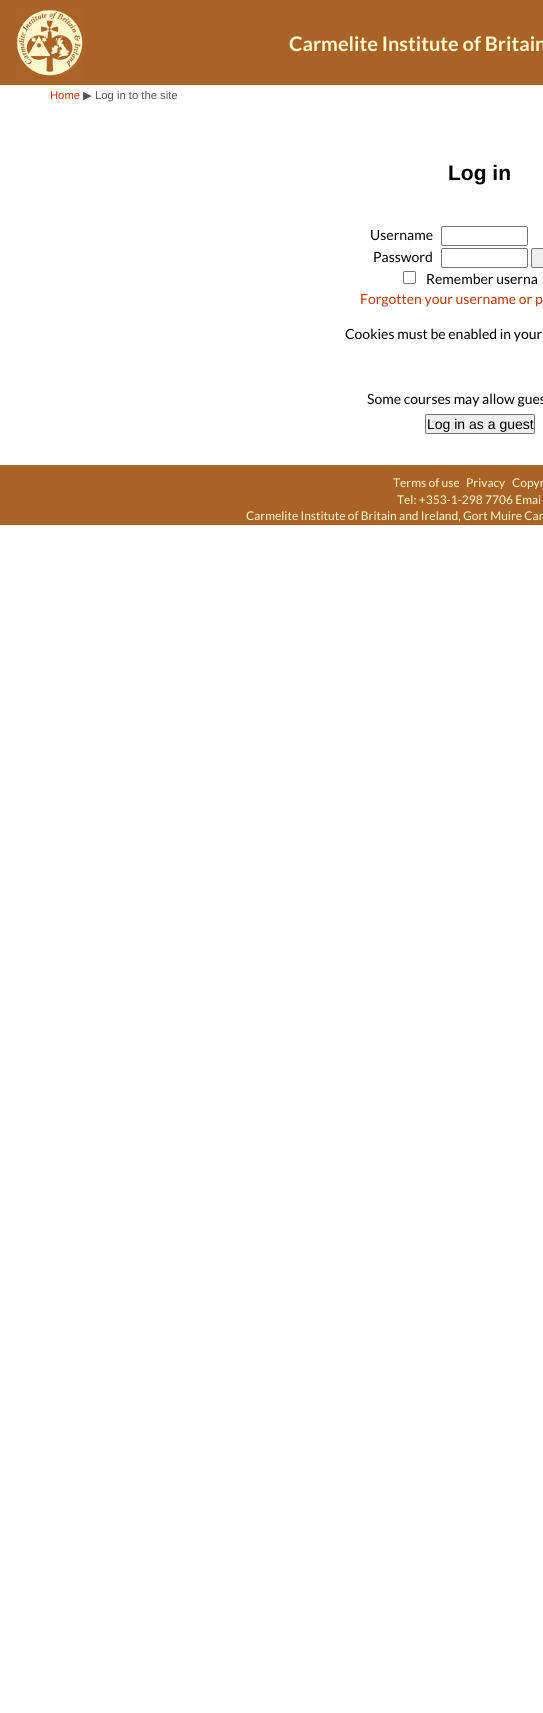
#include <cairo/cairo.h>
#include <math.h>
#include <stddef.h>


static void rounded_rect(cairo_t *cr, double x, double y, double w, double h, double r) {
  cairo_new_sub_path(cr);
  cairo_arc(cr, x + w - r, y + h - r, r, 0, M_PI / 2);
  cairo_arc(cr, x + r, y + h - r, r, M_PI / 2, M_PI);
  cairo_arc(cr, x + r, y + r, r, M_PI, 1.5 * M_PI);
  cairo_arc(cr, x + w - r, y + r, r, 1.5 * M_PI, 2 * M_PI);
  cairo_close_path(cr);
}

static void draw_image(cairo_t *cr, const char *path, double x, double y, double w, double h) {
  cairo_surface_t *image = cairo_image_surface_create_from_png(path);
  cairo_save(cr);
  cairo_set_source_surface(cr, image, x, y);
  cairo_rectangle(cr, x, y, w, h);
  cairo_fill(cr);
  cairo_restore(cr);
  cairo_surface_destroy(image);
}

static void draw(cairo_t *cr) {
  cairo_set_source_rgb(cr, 1, 1, 1);
  cairo_paint(cr);
  cairo_set_source_rgb(cr, 170 / 255.0, 99 / 255.0, 39 / 255.0);
  cairo_rectangle(cr, 0, 0, 543, 85);
  cairo_fill(cr);
  draw_image(cr, "images/1.png", 15, 8, 69, 72);
  rounded_rect(cr, 441.5, 226.5, 86, 19, 1.5);
  cairo_set_source_rgb(cr, 118 / 255.0, 118 / 255.0, 118 / 255.0);
  cairo_set_line_width(cr, 1);
  cairo_stroke(cr);
  rounded_rect(cr, 441.5, 248.5, 86, 19, 1.5);
  cairo_stroke(cr);
  cairo_set_source_rgb(cr, 239 / 255.0, 239 / 255.0, 239 / 255.0);
  rounded_rect(cr, 531.5, 248.5, 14, 19, 1.5);
  cairo_fill_preserve(cr);
  cairo_set_source_rgb(cr, 118 / 255.0, 118 / 255.0, 118 / 255.0);
  cairo_stroke(cr);
  rounded_rect(cr, 403.5, 271.5, 12, 12, 1.5);
  cairo_stroke(cr);
  cairo_set_source_rgb(cr, 239 / 255.0, 239 / 255.0, 239 / 255.0);
  rounded_rect(cr, 425.5, 414.5, 109, 19, 1.5);
  cairo_fill_preserve(cr);
  cairo_set_source_rgb(cr, 118 / 255.0, 118 / 255.0, 118 / 255.0);
  cairo_stroke(cr);
  cairo_set_source_rgb(cr, 170 / 255.0, 99 / 255.0, 39 / 255.0);
  cairo_rectangle(cr, 0, 465, 543, 60);
  cairo_fill(cr);
  cairo_select_font_face(cr, "Lato", CAIRO_FONT_SLANT_NORMAL, CAIRO_FONT_WEIGHT_BOLD);
  cairo_set_font_size(cr, 20);
  cairo_set_source_rgb(cr, 254 / 255.0, 248 / 255.0, 205 / 255.0);
  cairo_move_to(cr, 289, 51);
  cairo_show_text(cr, "Carmelite Institute of Britain");
  cairo_select_font_face(cr, "Liberation Sans", CAIRO_FONT_SLANT_NORMAL, CAIRO_FONT_WEIGHT_NORMAL);
  cairo_set_font_size(cr, 11.25);
  cairo_set_source_rgb(cr, 191 / 255.0, 53 / 255.0, 3 / 255.0);
  cairo_move_to(cr, 50, 99);
  cairo_show_text(cr, "Home");
  cairo_select_font_face(cr, "DejaVu Sans", CAIRO_FONT_SLANT_NORMAL, CAIRO_FONT_WEIGHT_NORMAL);
  cairo_set_source_rgb(cr, 85 / 255.0, 85 / 255.0, 85 / 255.0);
  cairo_move_to(cr, 83, 99);
  cairo_show_text(cr, "▶");
  cairo_select_font_face(cr, "Liberation Sans", CAIRO_FONT_SLANT_NORMAL, CAIRO_FONT_WEIGHT_NORMAL);
  cairo_move_to(cr, 95, 99);
  cairo_show_text(cr, "Log in to the site");
  cairo_select_font_face(cr, "Liberation Sans", CAIRO_FONT_SLANT_NORMAL, CAIRO_FONT_WEIGHT_BOLD);
  cairo_set_font_size(cr, 21);
  cairo_set_source_rgb(cr, 0, 0, 0);
  cairo_move_to(cr, 448, 180);
  cairo_show_text(cr, "Log in");
  cairo_select_font_face(cr, "Lato", CAIRO_FONT_SLANT_NORMAL, CAIRO_FONT_WEIGHT_NORMAL);
  cairo_set_font_size(cr, 14);
  cairo_move_to(cr, 370, 240);
  cairo_show_text(cr, "Username");
  cairo_move_to(cr, 373, 262);
  cairo_show_text(cr, "Password");
  cairo_move_to(cr, 426, 284);
  cairo_show_text(cr, "Remember userna");
  cairo_set_source_rgb(cr, 191 / 255.0, 53 / 255.0, 3 / 255.0);
  cairo_move_to(cr, 360, 304);
  cairo_show_text(cr, "Forgotten your username or p");
  cairo_set_source_rgb(cr, 0, 0, 0);
  cairo_move_to(cr, 345, 339);
  cairo_show_text(cr, "Cookies must be enabled in your");
  cairo_move_to(cr, 367, 404);
  cairo_show_text(cr, "Some courses may allow gues");
  cairo_select_font_face(cr, "Liberation Sans", CAIRO_FONT_SLANT_NORMAL, CAIRO_FONT_WEIGHT_NORMAL);
  cairo_move_to(cr, 427, 429);
  cairo_show_text(cr, "Log in as a guest");
  cairo_select_font_face(cr, "Lato", CAIRO_FONT_SLANT_NORMAL, CAIRO_FONT_WEIGHT_NORMAL);
  cairo_set_font_size(cr, 12);
  cairo_set_source_rgb(cr, 254 / 255.0, 248 / 255.0, 205 / 255.0);
  cairo_move_to(cr, 393, 487);
  cairo_show_text(cr, "Terms of use");
  cairo_move_to(cr, 466, 487);
  cairo_show_text(cr, "Privacy");
  cairo_move_to(cr, 512, 487);
  cairo_show_text(cr, "Copyr");
  cairo_move_to(cr, 397, 504);
  cairo_show_text(cr, "Tel: +353-1-298 7706 Emai");
  cairo_move_to(cr, 246, 520);
  cairo_show_text(cr, "Carmelite Institute of Britain and Ireland, Gort Muire Car");
}

int main(void) {
  cairo_surface_t *surface = cairo_image_surface_create(CAIRO_FORMAT_RGB24, 543, 1713);
  cairo_t *cr = cairo_create(surface);
  cairo_font_options_t *options = cairo_font_options_create();
  cairo_font_options_set_hint_metrics(options, CAIRO_HINT_METRICS_OFF);
  cairo_font_options_set_hint_style(options, CAIRO_HINT_STYLE_NONE);
  cairo_set_font_options(cr, options);
  cairo_set_miter_limit(cr, 4);
  draw(cr);
  cairo_surface_write_to_png(surface, "out.png");
  cairo_font_options_destroy(options);
  cairo_destroy(cr);
  cairo_surface_destroy(surface);
  return 0;
}
